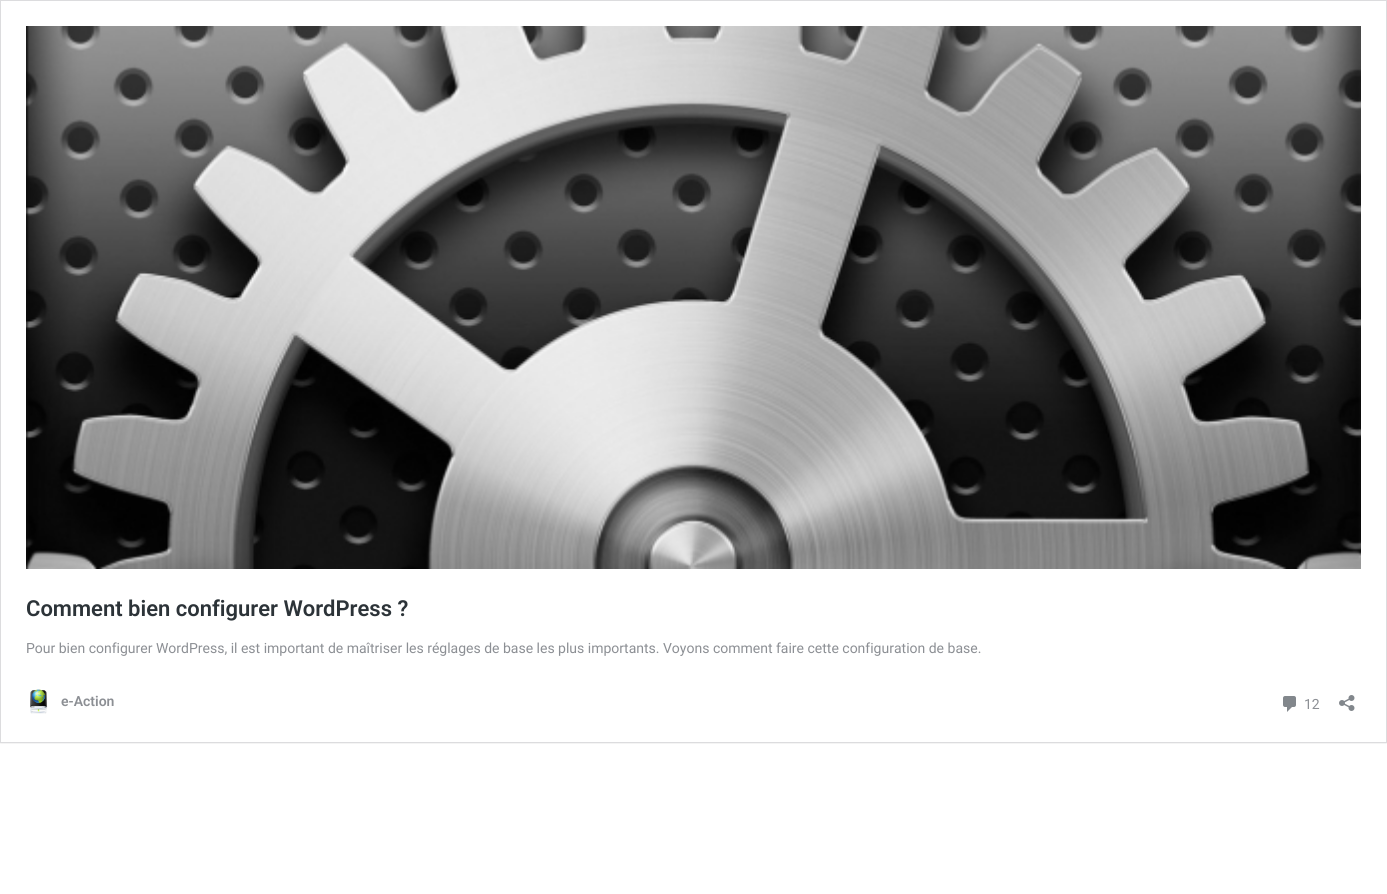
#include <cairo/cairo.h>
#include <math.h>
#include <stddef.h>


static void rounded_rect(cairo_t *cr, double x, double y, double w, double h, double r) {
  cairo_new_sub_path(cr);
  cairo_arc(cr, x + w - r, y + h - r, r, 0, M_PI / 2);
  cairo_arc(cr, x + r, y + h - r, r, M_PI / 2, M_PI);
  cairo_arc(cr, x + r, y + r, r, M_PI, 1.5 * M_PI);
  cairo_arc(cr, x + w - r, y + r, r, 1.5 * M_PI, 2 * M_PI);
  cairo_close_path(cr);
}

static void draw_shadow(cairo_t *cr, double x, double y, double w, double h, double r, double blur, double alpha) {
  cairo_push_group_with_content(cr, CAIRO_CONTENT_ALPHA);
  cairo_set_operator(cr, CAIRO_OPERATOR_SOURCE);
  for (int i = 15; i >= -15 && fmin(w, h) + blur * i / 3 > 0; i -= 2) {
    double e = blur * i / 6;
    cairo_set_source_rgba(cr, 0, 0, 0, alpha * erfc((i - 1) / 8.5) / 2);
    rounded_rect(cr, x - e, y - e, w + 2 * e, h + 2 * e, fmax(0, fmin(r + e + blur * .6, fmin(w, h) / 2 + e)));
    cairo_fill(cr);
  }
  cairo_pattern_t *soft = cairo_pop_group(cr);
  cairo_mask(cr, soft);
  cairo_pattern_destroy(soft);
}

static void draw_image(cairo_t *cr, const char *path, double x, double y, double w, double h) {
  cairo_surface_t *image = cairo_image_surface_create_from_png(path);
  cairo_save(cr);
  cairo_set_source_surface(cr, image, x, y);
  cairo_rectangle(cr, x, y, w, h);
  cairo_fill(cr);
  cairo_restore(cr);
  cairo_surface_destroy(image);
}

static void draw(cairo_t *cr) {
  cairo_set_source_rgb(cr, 1, 1, 1);
  cairo_paint(cr);
  cairo_save(cr);
  cairo_rectangle(cr, 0, 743, 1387, 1);
  cairo_clip(cr);
  cairo_set_source_rgb(cr, 0, 0, 0);
  draw_shadow(cr, 0, 1, 1387, 743, 0, 0.5, 0.05);
  cairo_restore(cr);
  cairo_rectangle(cr, 0.5, 0.5, 1386, 742);
  cairo_set_source_rgb(cr, 220 / 255.0, 220 / 255.0, 222 / 255.0);
  cairo_set_line_width(cr, 1);
  cairo_stroke(cr);
  draw_image(cr, "images/1.png", 26, 26, 1335, 543);
  draw_image(cr, "images/2.png", 30, 689, 18, 25);
  draw_image(cr, "images/3.png", 1283, 696, 13, 16);
  draw_image(cr, "images/4.png", 1339, 695, 16, 16);
  cairo_select_font_face(cr, "Roboto SemiBold", CAIRO_FONT_SLANT_NORMAL, CAIRO_FONT_WEIGHT_NORMAL);
  cairo_set_font_size(cr, 22);
  cairo_set_source_rgb(cr, 44 / 255.0, 51 / 255.0, 56 / 255.0);
  cairo_move_to(cr, 26, 616);
  cairo_show_text(cr, "Comment bien configurer WordPress ?");
  cairo_select_font_face(cr, "Roboto", CAIRO_FONT_SLANT_NORMAL, CAIRO_FONT_WEIGHT_NORMAL);
  cairo_set_font_size(cr, 14);
  cairo_set_source_rgb(cr, 140 / 255.0, 143 / 255.0, 148 / 255.0);
  cairo_move_to(cr, 26, 653);
  cairo_show_text(cr, "Pour bien configurer WordPress, il est important de maîtriser les réglages de base les plus importants. Voyons comment faire cette configuration de base.");
  cairo_select_font_face(cr, "Roboto SemiBold", CAIRO_FONT_SLANT_NORMAL, CAIRO_FONT_WEIGHT_NORMAL);
  cairo_move_to(cr, 61, 706);
  cairo_show_text(cr, "e-Action");
  cairo_select_font_face(cr, "Roboto", CAIRO_FONT_SLANT_NORMAL, CAIRO_FONT_WEIGHT_NORMAL);
  cairo_move_to(cr, 1304, 709);
  cairo_show_text(cr, "12");
}

int main(void) {
  cairo_surface_t *surface = cairo_image_surface_create(CAIRO_FORMAT_RGB24, 1387, 894);
  cairo_t *cr = cairo_create(surface);
  cairo_font_options_t *options = cairo_font_options_create();
  cairo_font_options_set_hint_metrics(options, CAIRO_HINT_METRICS_OFF);
  cairo_font_options_set_hint_style(options, CAIRO_HINT_STYLE_NONE);
  cairo_set_font_options(cr, options);
  cairo_set_miter_limit(cr, 4);
  draw(cr);
  cairo_surface_write_to_png(surface, "out.png");
  cairo_font_options_destroy(options);
  cairo_destroy(cr);
  cairo_surface_destroy(surface);
  return 0;
}
